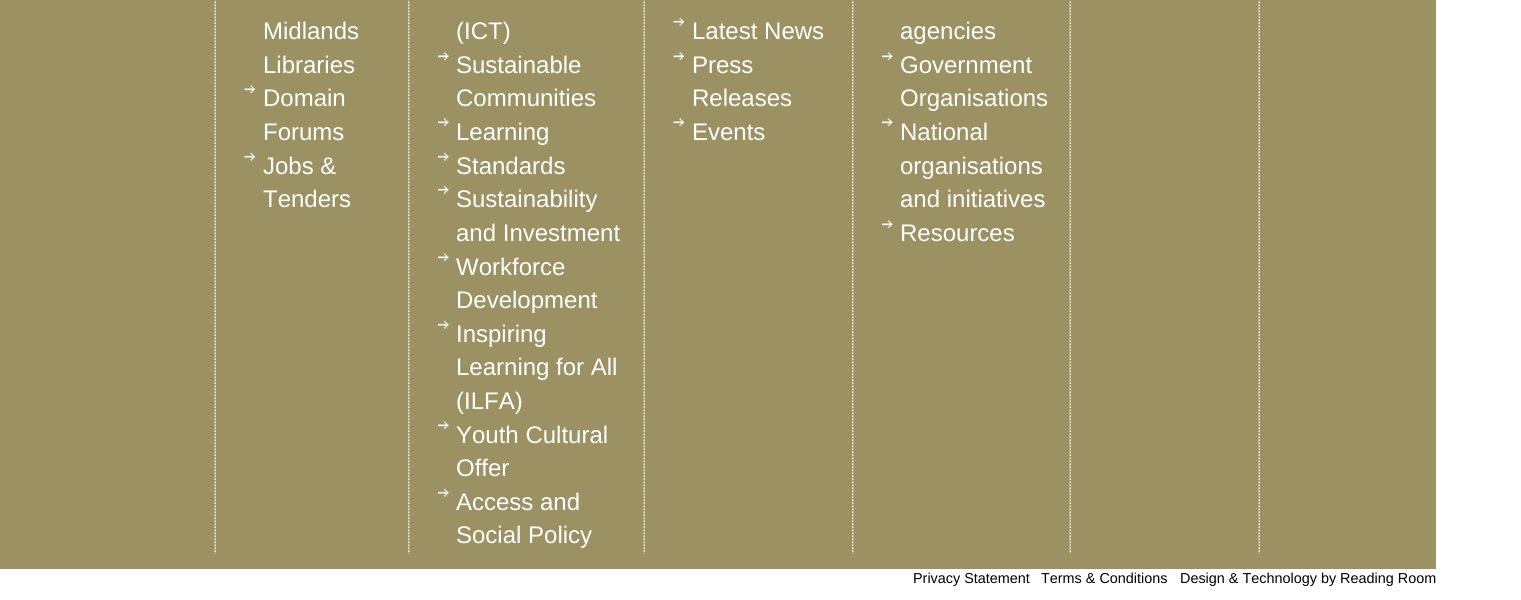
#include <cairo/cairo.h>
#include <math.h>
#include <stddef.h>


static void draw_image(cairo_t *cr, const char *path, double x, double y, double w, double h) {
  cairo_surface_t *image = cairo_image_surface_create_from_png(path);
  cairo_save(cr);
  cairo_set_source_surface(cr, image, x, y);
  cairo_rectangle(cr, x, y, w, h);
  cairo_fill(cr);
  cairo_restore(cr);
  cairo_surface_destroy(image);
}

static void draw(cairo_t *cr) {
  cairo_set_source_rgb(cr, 1, 1, 1);
  cairo_paint(cr);
  cairo_set_source_rgb(cr, 155 / 255.0, 145 / 255.0, 99 / 255.0);
  cairo_rectangle(cr, 0, 0, 1436, 569);
  cairo_fill(cr);
  draw_image(cr, "images/1.png", 214, 0, 2, 554);
  draw_image(cr, "images/2.png", 244, 85, 11, 8);
  draw_image(cr, "images/3.png", 244, 152, 11, 9);
  draw_image(cr, "images/4.png", 408, 0, 2, 554);
  draw_image(cr, "images/5.png", 438, 52, 11, 8);
  draw_image(cr, "images/5.png", 438, 118, 11, 8);
  draw_image(cr, "images/6.png", 438, 152, 11, 9);
  draw_image(cr, "images/6.png", 438, 185, 11, 9);
  draw_image(cr, "images/5.png", 438, 253, 11, 8);
  draw_image(cr, "images/6.png", 438, 320, 11, 9);
  draw_image(cr, "images/5.png", 438, 421, 11, 8);
  draw_image(cr, "images/6.png", 438, 488, 11, 9);
  draw_image(cr, "images/1.png", 643, 0, 2, 554);
  draw_image(cr, "images/7.png", 673, 17, 11, 9);
  draw_image(cr, "images/8.png", 673, 52, 11, 8);
  draw_image(cr, "images/8.png", 673, 118, 11, 8);
  draw_image(cr, "images/4.png", 852, 0, 2, 554);
  draw_image(cr, "images/9.png", 882, 52, 11, 8);
  draw_image(cr, "images/9.png", 882, 118, 11, 8);
  draw_image(cr, "images/9.png", 882, 220, 11, 8);
  draw_image(cr, "images/1.png", 1069, 0, 2, 554);
  draw_image(cr, "images/1.png", 1258, 0, 2, 554);
  cairo_select_font_face(cr, "Liberation Sans", CAIRO_FONT_SLANT_NORMAL, CAIRO_FONT_WEIGHT_NORMAL);
  cairo_set_font_size(cr, 24);
  cairo_set_source_rgb(cr, 1, 1, 1);
  cairo_move_to(cr, 263, 39);
  cairo_show_text(cr, "Midlands");
  cairo_move_to(cr, 263, 73);
  cairo_show_text(cr, "Libraries");
  cairo_move_to(cr, 263, 106);
  cairo_show_text(cr, "Domain");
  cairo_move_to(cr, 263, 140);
  cairo_show_text(cr, "Forums");
  cairo_move_to(cr, 263, 174);
  cairo_show_text(cr, "Jobs &");
  cairo_move_to(cr, 263, 207);
  cairo_show_text(cr, "Tenders");
  cairo_move_to(cr, 456, 39);
  cairo_show_text(cr, "(ICT)");
  cairo_move_to(cr, 456, 73);
  cairo_show_text(cr, "Sustainable");
  cairo_move_to(cr, 456, 106);
  cairo_show_text(cr, "Communities");
  cairo_move_to(cr, 456, 140);
  cairo_show_text(cr, "Learning");
  cairo_move_to(cr, 456, 174);
  cairo_show_text(cr, "Standards");
  cairo_move_to(cr, 456, 207);
  cairo_show_text(cr, "Sustainability");
  cairo_move_to(cr, 456, 241);
  cairo_show_text(cr, "and Investment");
  cairo_move_to(cr, 456, 275);
  cairo_show_text(cr, "Workforce");
  cairo_move_to(cr, 456, 308);
  cairo_show_text(cr, "Development");
  cairo_move_to(cr, 456, 342);
  cairo_show_text(cr, "Inspiring");
  cairo_move_to(cr, 456, 375);
  cairo_show_text(cr, "Learning for All");
  cairo_move_to(cr, 456, 409);
  cairo_show_text(cr, "(ILFA)");
  cairo_move_to(cr, 456, 443);
  cairo_show_text(cr, "Youth Cultural");
  cairo_move_to(cr, 456, 476);
  cairo_show_text(cr, "Offer");
  cairo_move_to(cr, 456, 510);
  cairo_show_text(cr, "Access and");
  cairo_move_to(cr, 456, 543);
  cairo_show_text(cr, "Social Policy");
  cairo_move_to(cr, 692, 39);
  cairo_show_text(cr, "Latest News");
  cairo_move_to(cr, 692, 73);
  cairo_show_text(cr, "Press");
  cairo_move_to(cr, 692, 106);
  cairo_show_text(cr, "Releases");
  cairo_move_to(cr, 692, 140);
  cairo_show_text(cr, "Events");
  cairo_move_to(cr, 900, 39);
  cairo_show_text(cr, "agencies");
  cairo_move_to(cr, 900, 73);
  cairo_show_text(cr, "Government");
  cairo_move_to(cr, 900, 106);
  cairo_show_text(cr, "Organisations");
  cairo_move_to(cr, 900, 140);
  cairo_show_text(cr, "National");
  cairo_move_to(cr, 900, 174);
  cairo_show_text(cr, "organisations");
  cairo_move_to(cr, 900, 207);
  cairo_show_text(cr, "and initiatives");
  cairo_move_to(cr, 900, 241);
  cairo_show_text(cr, "Resources");
  cairo_set_font_size(cr, 14.4);
  cairo_set_source_rgb(cr, 0, 0, 0);
  cairo_move_to(cr, 913, 583);
  cairo_show_text(cr, "Privacy Statement");
  cairo_move_to(cr, 1041, 583);
  cairo_show_text(cr, "Terms & Conditions");
  cairo_move_to(cr, 1180, 583);
  cairo_show_text(cr, "Design & Technology by Reading Room");
}

int main(void) {
  cairo_surface_t *surface = cairo_image_surface_create(CAIRO_FORMAT_RGB24, 1521, 600);
  cairo_t *cr = cairo_create(surface);
  cairo_font_options_t *options = cairo_font_options_create();
  cairo_font_options_set_hint_metrics(options, CAIRO_HINT_METRICS_OFF);
  cairo_font_options_set_hint_style(options, CAIRO_HINT_STYLE_NONE);
  cairo_set_font_options(cr, options);
  cairo_set_miter_limit(cr, 4);
  draw(cr);
  cairo_surface_write_to_png(surface, "out.png");
  cairo_font_options_destroy(options);
  cairo_destroy(cr);
  cairo_surface_destroy(surface);
  return 0;
}
